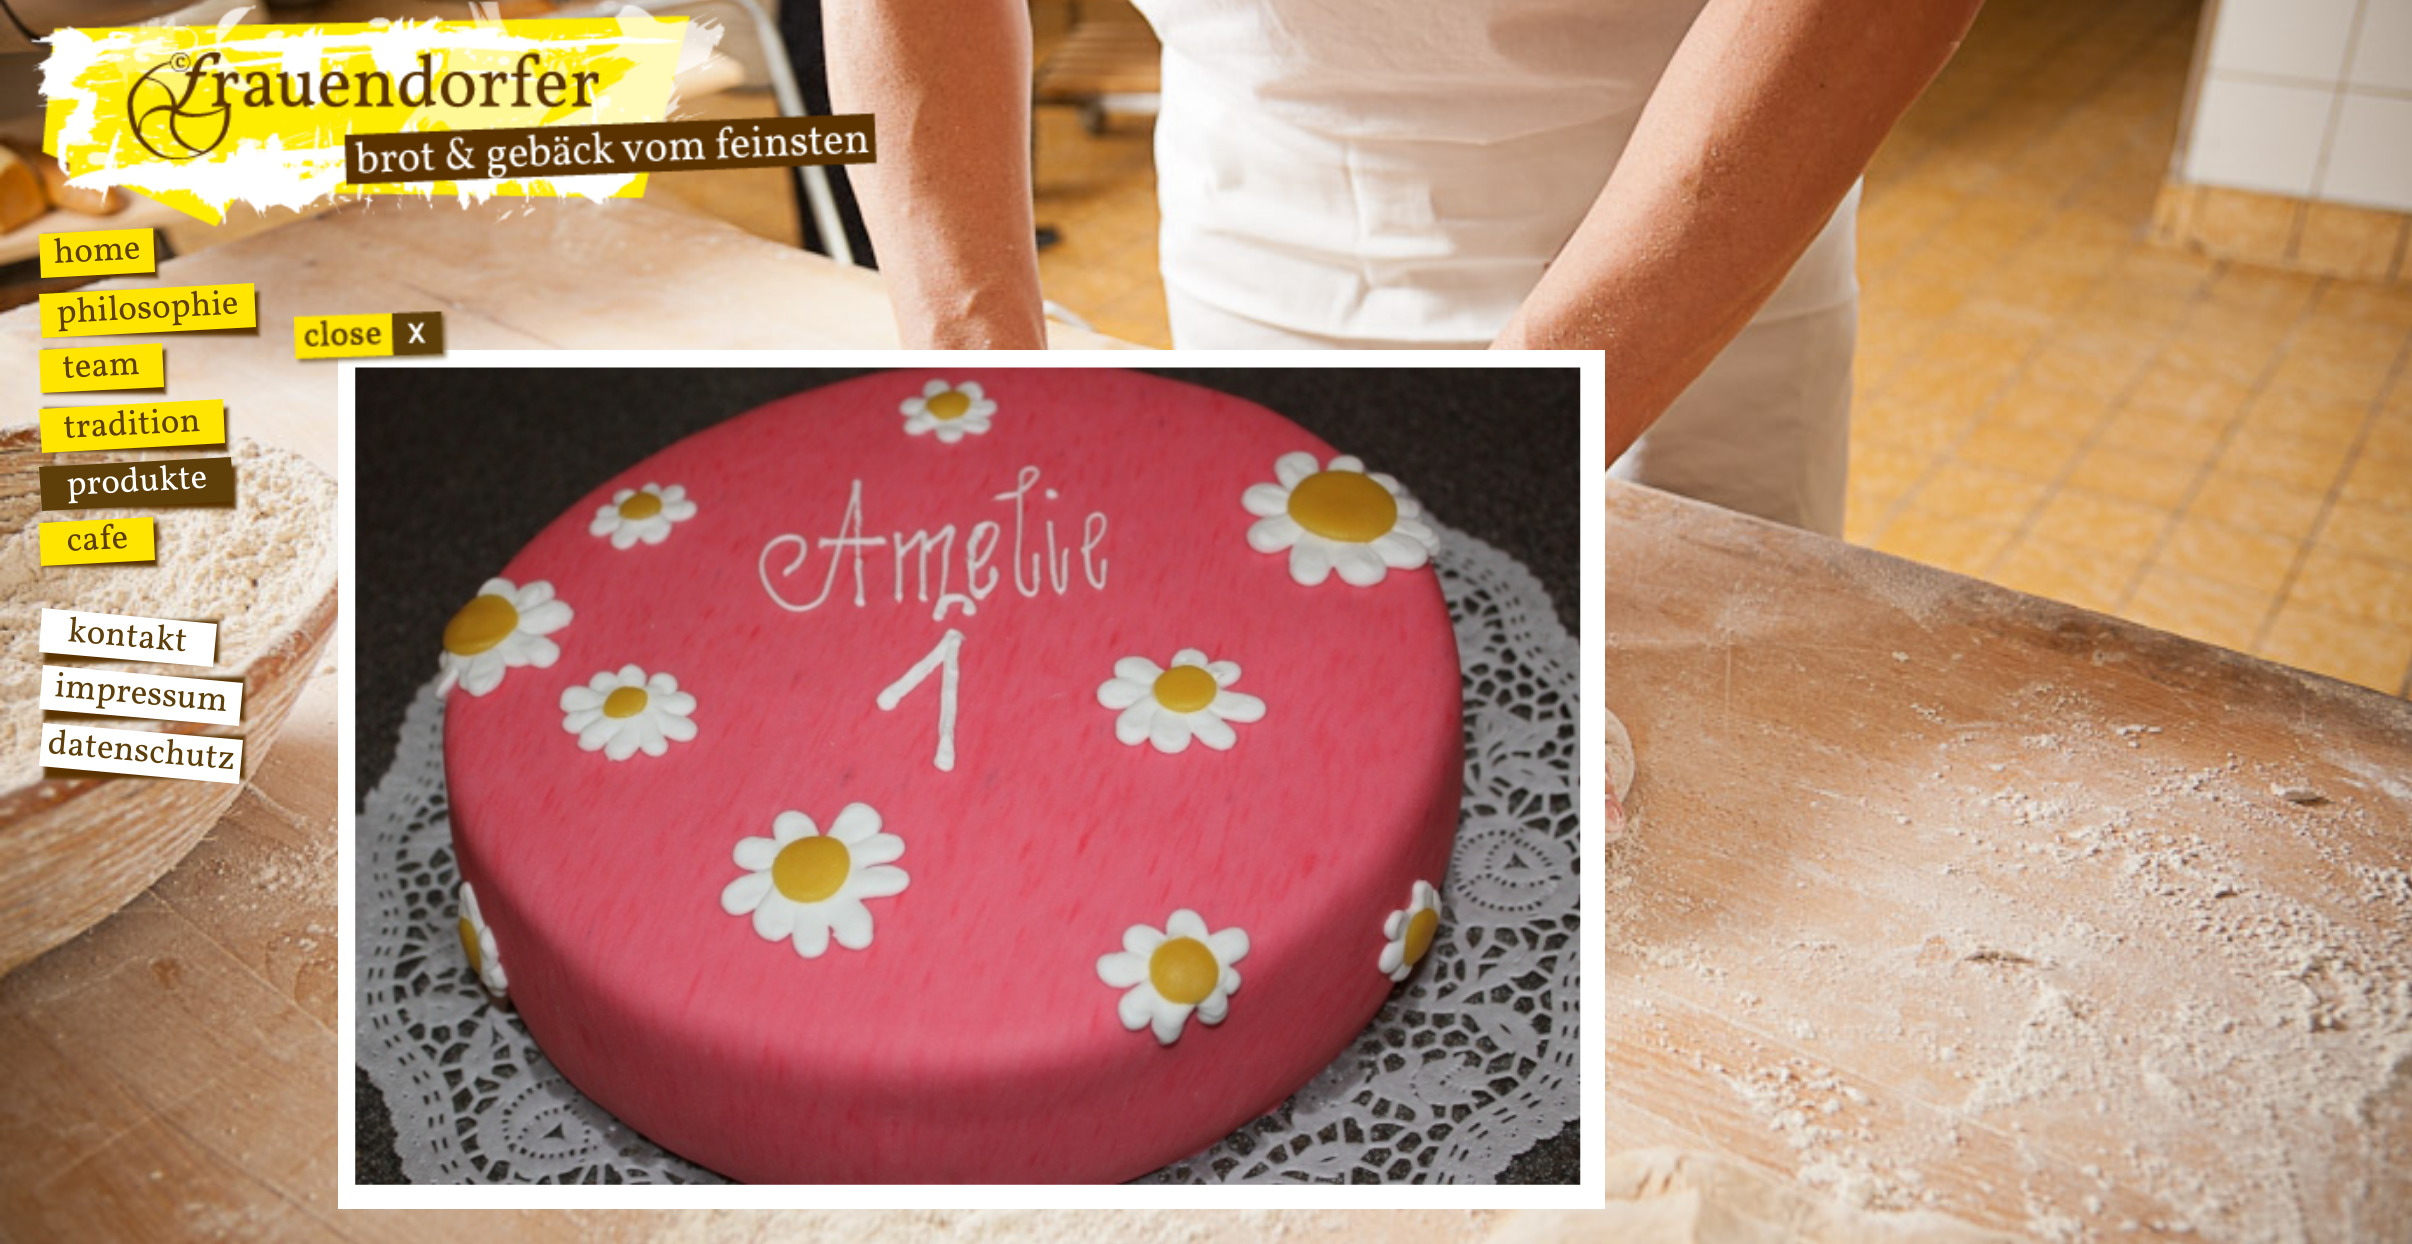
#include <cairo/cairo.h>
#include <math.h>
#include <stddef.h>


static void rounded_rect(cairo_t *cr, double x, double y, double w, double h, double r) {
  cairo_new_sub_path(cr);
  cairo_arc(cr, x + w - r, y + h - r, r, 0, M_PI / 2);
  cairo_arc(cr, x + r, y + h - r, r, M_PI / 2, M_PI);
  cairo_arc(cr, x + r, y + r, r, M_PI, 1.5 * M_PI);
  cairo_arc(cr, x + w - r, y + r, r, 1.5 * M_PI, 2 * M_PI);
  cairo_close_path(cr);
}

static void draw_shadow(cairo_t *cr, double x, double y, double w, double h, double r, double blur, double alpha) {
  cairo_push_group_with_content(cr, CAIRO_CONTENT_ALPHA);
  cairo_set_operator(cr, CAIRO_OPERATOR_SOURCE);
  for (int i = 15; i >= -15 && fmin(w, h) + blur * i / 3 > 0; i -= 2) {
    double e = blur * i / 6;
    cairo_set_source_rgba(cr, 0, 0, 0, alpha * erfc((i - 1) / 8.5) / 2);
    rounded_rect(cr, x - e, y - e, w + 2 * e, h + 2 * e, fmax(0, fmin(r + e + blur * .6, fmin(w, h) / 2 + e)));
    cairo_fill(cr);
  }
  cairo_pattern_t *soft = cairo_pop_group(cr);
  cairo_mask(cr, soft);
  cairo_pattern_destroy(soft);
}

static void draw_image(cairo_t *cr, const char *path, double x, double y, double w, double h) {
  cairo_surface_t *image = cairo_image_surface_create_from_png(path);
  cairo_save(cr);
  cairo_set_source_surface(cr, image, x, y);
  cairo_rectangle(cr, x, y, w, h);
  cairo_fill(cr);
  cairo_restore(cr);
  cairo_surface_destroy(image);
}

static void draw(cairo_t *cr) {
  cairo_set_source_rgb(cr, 1, 1, 1);
  cairo_paint(cr);
  draw_image(cr, "images/1.png", 0, 0, 2412, 1244);
  draw_image(cr, "images/2.png", 30, 1, 848, 227);
  cairo_set_source_rgb(cr, 90 / 255.0, 50 / 255.0, 0);
  draw_shadow(cr, 44, 235, 114, 43, 0, 2, 1);
  cairo_set_source_rgb(cr, 1, 229 / 255.0, 0);
  cairo_new_path(cr);
  cairo_move_to(cr, 39, 234);
  cairo_line_to(cr, 153, 228);
  cairo_line_to(cr, 155, 272);
  cairo_line_to(cr, 41, 278);
  cairo_close_path(cr);
  cairo_fill(cr);
  cairo_set_source_rgb(cr, 90 / 255.0, 50 / 255.0, 0);
  draw_shadow(cr, 44, 292, 215, 44, 0, 2, 1);
  cairo_set_source_rgb(cr, 1, 229 / 255.0, 0);
  cairo_new_path(cr);
  cairo_move_to(cr, 39, 294);
  cairo_line_to(cr, 254, 283);
  cairo_line_to(cr, 256, 327);
  cairo_line_to(cr, 42, 338);
  cairo_close_path(cr);
  cairo_fill(cr);
  cairo_set_source_rgb(cr, 90 / 255.0, 50 / 255.0, 0);
  draw_shadow(cr, 44, 350, 122, 44, 0, 2, 1);
  cairo_set_source_rgb(cr, 1, 229 / 255.0, 0);
  cairo_new_path(cr);
  cairo_move_to(cr, 39, 350);
  cairo_line_to(cr, 162, 343);
  cairo_line_to(cr, 164, 387);
  cairo_line_to(cr, 41, 393);
  cairo_close_path(cr);
  cairo_fill(cr);
  cairo_set_source_rgb(cr, 90 / 255.0, 50 / 255.0, 0);
  draw_shadow(cr, 44, 408, 184, 44, 0, 2, 1);
  cairo_set_source_rgb(cr, 1, 229 / 255.0, 0);
  cairo_new_path(cr);
  cairo_move_to(cr, 39, 409);
  cairo_line_to(cr, 223, 399);
  cairo_line_to(cr, 225, 443);
  cairo_line_to(cr, 42, 453);
  cairo_close_path(cr);
  cairo_fill(cr);
  cairo_set_source_rgb(cr, 90 / 255.0, 50 / 255.0, 0);
  draw_shadow(cr, 44, 466, 192, 43, 0, 2, 1);
  cairo_set_source_rgb(cr, 94 / 255.0, 63 / 255.0, 10 / 255.0);
  cairo_new_path(cr);
  cairo_move_to(cr, 39, 467);
  cairo_line_to(cr, 231, 457);
  cairo_line_to(cr, 234, 501);
  cairo_line_to(cr, 42, 511);
  cairo_close_path(cr);
  cairo_fill(cr);
  cairo_set_source_rgb(cr, 90 / 255.0, 50 / 255.0, 0);
  draw_shadow(cr, 44, 523, 114, 44, 0, 2, 1);
  cairo_set_source_rgb(cr, 1, 229 / 255.0, 0);
  cairo_new_path(cr);
  cairo_move_to(cr, 39, 523);
  cairo_line_to(cr, 153, 517);
  cairo_line_to(cr, 155, 560);
  cairo_line_to(cr, 41, 566);
  cairo_close_path(cr);
  cairo_fill(cr);
  cairo_set_source_rgb(cr, 90 / 255.0, 50 / 255.0, 0);
  draw_shadow(cr, 44, 620, 175, 43, 0, 2, 1);
  cairo_set_source_rgb(cr, 1, 1, 1);
  cairo_new_path(cr);
  cairo_move_to(cr, 42, 608);
  cairo_line_to(cr, 217, 624);
  cairo_line_to(cr, 213, 667);
  cairo_line_to(cr, 39, 652);
  cairo_close_path(cr);
  cairo_fill(cr);
  cairo_set_source_rgb(cr, 90 / 255.0, 50 / 255.0, 0);
  draw_shadow(cr, 44, 677, 201, 44, 0, 2, 1);
  cairo_set_source_rgb(cr, 1, 1, 1);
  cairo_new_path(cr);
  cairo_move_to(cr, 43, 665);
  cairo_line_to(cr, 243, 683);
  cairo_line_to(cr, 239, 726);
  cairo_line_to(cr, 39, 709);
  cairo_close_path(cr);
  cairo_fill(cr);
  cairo_set_source_rgb(cr, 90 / 255.0, 50 / 255.0, 0);
  draw_shadow(cr, 44, 735, 201, 44, 0, 2, 1);
  cairo_set_source_rgb(cr, 1, 1, 1);
  cairo_new_path(cr);
  cairo_move_to(cr, 43, 723);
  cairo_line_to(cr, 243, 740);
  cairo_line_to(cr, 239, 784);
  cairo_line_to(cr, 39, 766);
  cairo_close_path(cr);
  cairo_fill(cr);
  cairo_rectangle(cr, 338, 350, 1267, 859);
  cairo_fill(cr);
  draw_image(cr, "images/3.png", 294, 311, 156, 55);
  draw_image(cr, "images/4.png", 355, 367, 1226, 818);
  cairo_select_font_face(cr, "Vollkorn", CAIRO_FONT_SLANT_NORMAL, CAIRO_FONT_WEIGHT_NORMAL);
  cairo_set_font_size(cr, 35);
  cairo_set_source_rgb(cr, 94 / 255.0, 63 / 255.0, 10 / 255.0);
  cairo_save(cr);
  cairo_translate(cr, 54, 263);
  cairo_rotate(cr, -3 * M_PI / 180);
  cairo_move_to(cr, 0, 0);
  cairo_show_text(cr, "home");
  cairo_restore(cr);
  cairo_save(cr);
  cairo_translate(cr, 57, 323);
  cairo_rotate(cr, -3 * M_PI / 180);
  cairo_move_to(cr, 0, 0);
  cairo_show_text(cr, "philosophie");
  cairo_restore(cr);
  cairo_save(cr);
  cairo_translate(cr, 63, 378);
  cairo_rotate(cr, -3 * M_PI / 180);
  cairo_move_to(cr, 0, 0);
  cairo_show_text(cr, "team");
  cairo_restore(cr);
  cairo_save(cr);
  cairo_translate(cr, 64, 438);
  cairo_rotate(cr, -3 * M_PI / 180);
  cairo_move_to(cr, 0, 0);
  cairo_show_text(cr, "tradition");
  cairo_restore(cr);
  cairo_set_source_rgb(cr, 1, 1, 1);
  cairo_save(cr);
  cairo_translate(cr, 67, 495);
  cairo_rotate(cr, -3 * M_PI / 180);
  cairo_move_to(cr, 0, 0);
  cairo_show_text(cr, "produkte");
  cairo_restore(cr);
  cairo_set_source_rgb(cr, 94 / 255.0, 63 / 255.0, 10 / 255.0);
  cairo_save(cr);
  cairo_translate(cr, 67, 551);
  cairo_rotate(cr, -3 * M_PI / 180);
  cairo_move_to(cr, 0, 0);
  cairo_show_text(cr, "cafe");
  cairo_restore(cr);
  cairo_save(cr);
  cairo_translate(cr, 67, 641);
  cairo_rotate(cr, 5 * M_PI / 180);
  cairo_move_to(cr, 0, 0);
  cairo_show_text(cr, "kontakt");
  cairo_restore(cr);
  cairo_save(cr);
  cairo_translate(cr, 54, 696);
  cairo_rotate(cr, 5 * M_PI / 180);
  cairo_move_to(cr, 0, 0);
  cairo_show_text(cr, "impressum");
  cairo_restore(cr);
  cairo_save(cr);
  cairo_translate(cr, 47, 753);
  cairo_rotate(cr, 5 * M_PI / 180);
  cairo_move_to(cr, 0, 0);
  cairo_show_text(cr, "datenschutz");
  cairo_restore(cr);
}

int main(void) {
  cairo_surface_t *surface = cairo_image_surface_create(CAIRO_FORMAT_RGB24, 2412, 1244);
  cairo_t *cr = cairo_create(surface);
  cairo_font_options_t *options = cairo_font_options_create();
  cairo_font_options_set_hint_metrics(options, CAIRO_HINT_METRICS_OFF);
  cairo_font_options_set_hint_style(options, CAIRO_HINT_STYLE_NONE);
  cairo_set_font_options(cr, options);
  cairo_set_miter_limit(cr, 4);
  draw(cr);
  cairo_surface_write_to_png(surface, "out.png");
  cairo_font_options_destroy(options);
  cairo_destroy(cr);
  cairo_surface_destroy(surface);
  return 0;
}
